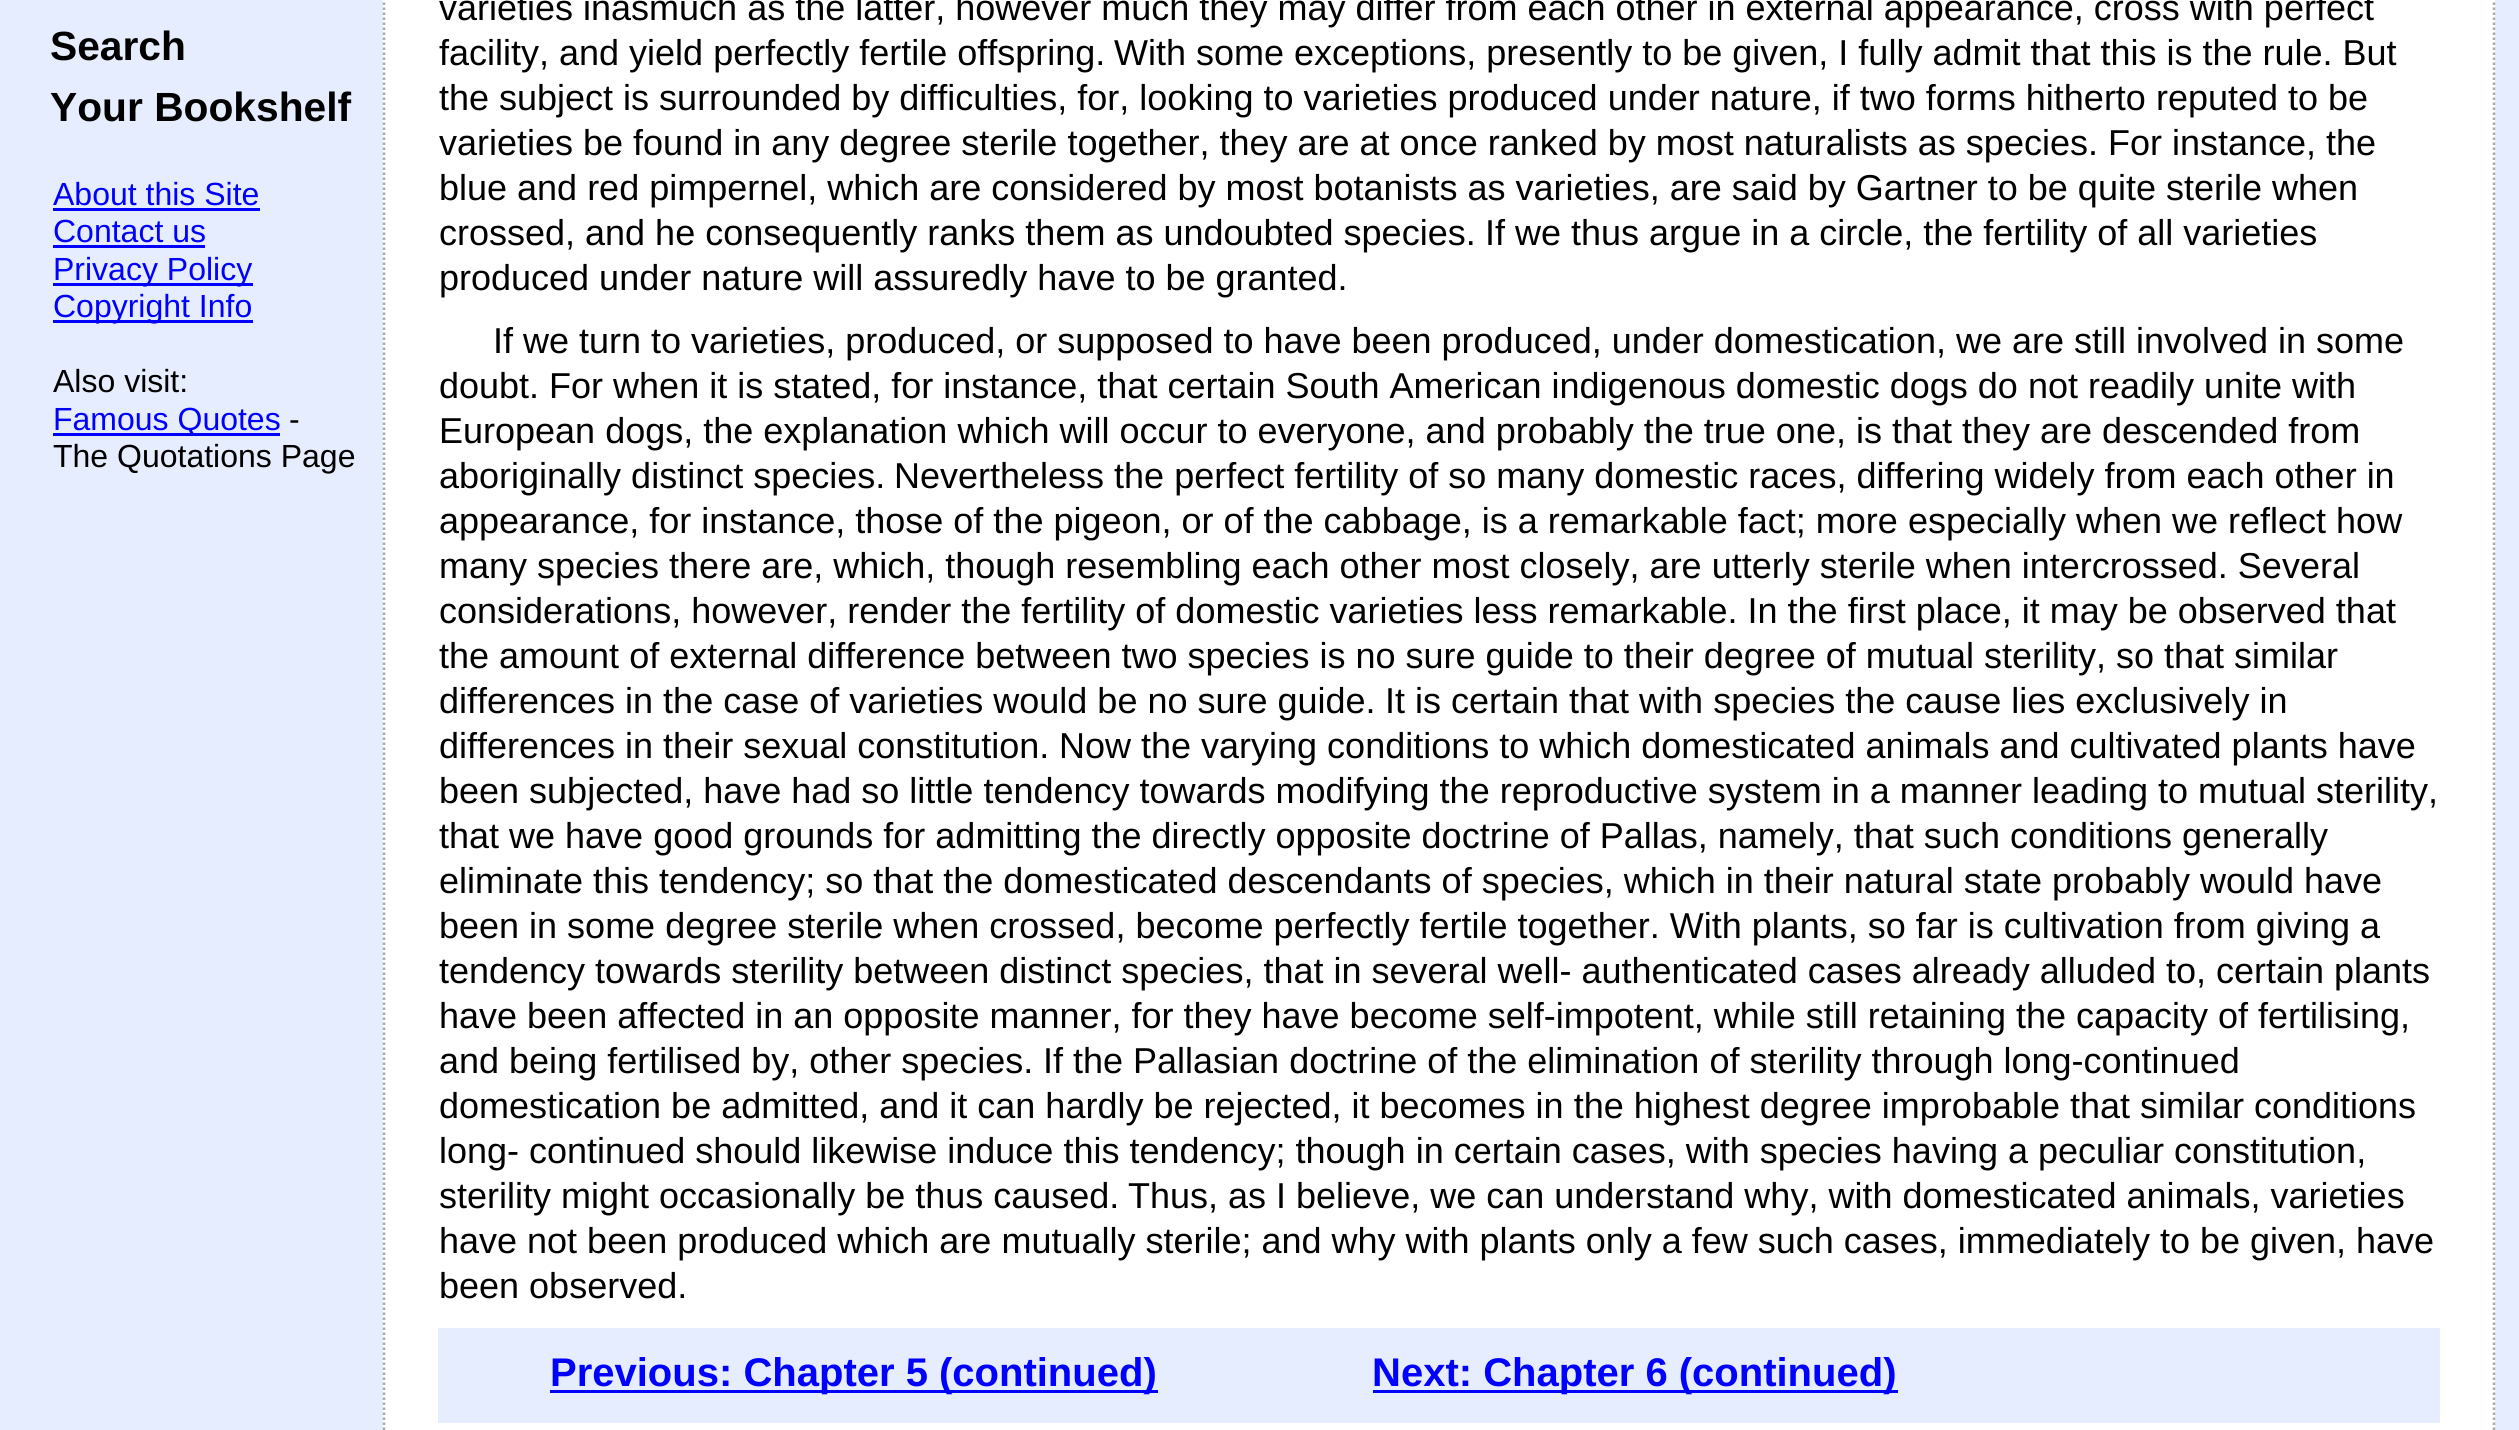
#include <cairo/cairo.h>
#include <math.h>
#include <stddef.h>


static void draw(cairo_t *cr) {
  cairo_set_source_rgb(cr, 230 / 255.0, 237 / 255.0, 1);
  cairo_paint(cr);
  cairo_set_source_rgb(cr, 0, 0, 1);
  cairo_rectangle(cr, 53, 208, 207, 3);
  cairo_fill(cr);
  cairo_rectangle(cr, 53, 245, 152, 3);
  cairo_fill(cr);
  cairo_rectangle(cr, 53, 283, 200, 3);
  cairo_fill(cr);
  cairo_rectangle(cr, 53, 320, 200, 3);
  cairo_fill(cr);
  cairo_rectangle(cr, 53, 433, 227, 3);
  cairo_fill(cr);
  cairo_set_source_rgb(cr, 1, 1, 1);
  cairo_rectangle(cr, 383, 0, 2112, 1430);
  cairo_fill(cr);
  cairo_new_path(cr);
  cairo_move_to(cr, 2494, -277.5);
  cairo_line_to(cr, 2494, 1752.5);
  cairo_set_source_rgb(cr, 166 / 255.0, 173 / 255.0, 159 / 255.0);
  cairo_set_line_width(cr, 2.5);
  cairo_set_dash(cr, (double[]){2.5, 2.5}, 2, 0);
  cairo_stroke(cr);
  cairo_new_path(cr);
  cairo_move_to(cr, 384, -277.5);
  cairo_line_to(cr, 384, 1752.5);
  cairo_stroke(cr);
  cairo_set_source_rgb(cr, 230 / 255.0, 237 / 255.0, 1);
  cairo_rectangle(cr, 438, 1328, 2002, 95);
  cairo_fill(cr);
  cairo_set_source_rgb(cr, 0, 0, 1);
  cairo_rectangle(cr, 550, 1390, 608, 3);
  cairo_fill(cr);
  cairo_rectangle(cr, 1373, 1390, 525, 3);
  cairo_fill(cr);
  cairo_select_font_face(cr, "Liberation Sans", CAIRO_FONT_SLANT_NORMAL, CAIRO_FONT_WEIGHT_BOLD);
  cairo_set_font_size(cr, 40.75);
  cairo_set_source_rgb(cr, 0, 0, 0);
  cairo_move_to(cr, 50, 60);
  cairo_show_text(cr, "Search");
  cairo_move_to(cr, 50, 121);
  cairo_show_text(cr, "Your Bookshelf");
  cairo_select_font_face(cr, "Liberation Sans", CAIRO_FONT_SLANT_NORMAL, CAIRO_FONT_WEIGHT_NORMAL);
  cairo_set_font_size(cr, 32);
  cairo_set_source_rgb(cr, 0, 0, 1);
  cairo_move_to(cr, 53, 205);
  cairo_show_text(cr, "About this Site");
  cairo_move_to(cr, 53, 242);
  cairo_show_text(cr, "Contact us");
  cairo_move_to(cr, 53, 280);
  cairo_show_text(cr, "Privacy Policy");
  cairo_move_to(cr, 53, 317);
  cairo_show_text(cr, "Copyright Info");
  cairo_set_source_rgb(cr, 0, 0, 0);
  cairo_move_to(cr, 53, 392);
  cairo_show_text(cr, "Also visit:");
  cairo_set_source_rgb(cr, 0, 0, 1);
  cairo_move_to(cr, 53, 430);
  cairo_show_text(cr, "Famous Quotes");
  cairo_set_source_rgb(cr, 0, 0, 0);
  cairo_move_to(cr, 289, 430);
  cairo_show_text(cr, "-");
  cairo_move_to(cr, 53, 467);
  cairo_show_text(cr, "The Quotations Page");
  cairo_set_font_size(cr, 36);
  cairo_move_to(cr, 439, 20);
  cairo_show_text(cr, "varieties inasmuch as the latter, however much they may differ from each other in external appearance, cross with perfect");
  cairo_move_to(cr, 439, 65);
  cairo_show_text(cr, "facility, and yield perfectly fertile offspring.");
  cairo_move_to(cr, 1114, 65);
  cairo_show_text(cr, "With some exceptions, presently to be given, I fully admit that this is the rule. But");
  cairo_move_to(cr, 439, 110);
  cairo_show_text(cr, "the subject is surrounded by difficulties, for, looking to varieties produced under nature, if two forms hitherto reputed to be");
  cairo_move_to(cr, 439, 155);
  cairo_show_text(cr, "varieties be found in any degree sterile together, they are at once ranked by most naturalists as species. For instance, the");
  cairo_move_to(cr, 439, 200);
  cairo_show_text(cr, "blue and red pimpernel, which are considered by most botanists as varieties, are said by Gartner to be quite sterile when");
  cairo_move_to(cr, 439, 245);
  cairo_show_text(cr, "crossed, and he consequently ranks them as undoubted species.");
  cairo_move_to(cr, 1485, 245);
  cairo_show_text(cr, "If we thus argue in a circle, the fertility of all varieties");
  cairo_move_to(cr, 439, 290);
  cairo_show_text(cr, "produced under nature will assuredly have to be granted.");
  cairo_move_to(cr, 493, 353);
  cairo_show_text(cr, "If we turn to varieties, produced, or supposed to have been produced, under domestication, we are still involved in some");
  cairo_move_to(cr, 439, 398);
  cairo_show_text(cr, "doubt. For when it is stated, for instance, that certain South American indigenous domestic dogs do not readily unite with");
  cairo_move_to(cr, 439, 443);
  cairo_show_text(cr, "European dogs, the explanation which will occur to everyone, and probably the true one, is that they are descended from");
  cairo_move_to(cr, 439, 488);
  cairo_show_text(cr, "aboriginally distinct species.");
  cairo_move_to(cr, 894, 488);
  cairo_show_text(cr, "Nevertheless the perfect fertility of so many domestic races, differing widely from each other in");
  cairo_move_to(cr, 439, 533);
  cairo_show_text(cr, "appearance, for instance, those of the pigeon, or of the cabbage, is a remarkable fact; more especially when we reflect how");
  cairo_move_to(cr, 439, 578);
  cairo_show_text(cr, "many species there are, which, though resembling each other most closely, are utterly sterile when intercrossed. Several");
  cairo_move_to(cr, 439, 623);
  cairo_show_text(cr, "considerations, however, render the fertility of domestic varieties less remarkable. In the first place, it may be observed that");
  cairo_move_to(cr, 439, 668);
  cairo_show_text(cr, "the amount of external difference between two species is no sure guide to their degree of mutual sterility, so that similar");
  cairo_move_to(cr, 439, 713);
  cairo_show_text(cr, "differences in the case of varieties would be no sure guide.");
  cairo_move_to(cr, 1385, 713);
  cairo_show_text(cr, "It is certain that with species the cause lies exclusively in");
  cairo_move_to(cr, 439, 758);
  cairo_show_text(cr, "differences in their sexual constitution.");
  cairo_move_to(cr, 1059, 758);
  cairo_show_text(cr, "Now the varying conditions to which domesticated animals and cultivated plants have");
  cairo_move_to(cr, 439, 803);
  cairo_show_text(cr, "been subjected, have had so little tendency towards modifying the reproductive system in a manner leading to mutual sterility,");
  cairo_move_to(cr, 439, 848);
  cairo_show_text(cr, "that we have good grounds for admitting the directly opposite doctrine of Pallas, namely, that such conditions generally");
  cairo_move_to(cr, 439, 893);
  cairo_show_text(cr, "eliminate this tendency; so that the domesticated descendants of species, which in their natural state probably would have");
  cairo_move_to(cr, 439, 938);
  cairo_show_text(cr, "been in some degree sterile when crossed, become perfectly fertile together. With plants, so far is cultivation from giving a");
  cairo_move_to(cr, 439, 983);
  cairo_show_text(cr, "tendency towards sterility between distinct species, that in several well- authenticated cases already alluded to, certain plants");
  cairo_move_to(cr, 439, 1028);
  cairo_show_text(cr, "have been affected in an opposite manner, for they have become self-impotent, while still retaining the capacity of fertilising,");
  cairo_move_to(cr, 439, 1073);
  cairo_show_text(cr, "and being fertilised by, other species.");
  cairo_move_to(cr, 1043, 1073);
  cairo_show_text(cr, "If the Pallasian doctrine of the elimination of sterility through long-continued");
  cairo_move_to(cr, 439, 1118);
  cairo_show_text(cr, "domestication be admitted, and it can hardly be rejected, it becomes in the highest degree improbable that similar conditions");
  cairo_move_to(cr, 439, 1163);
  cairo_show_text(cr, "long- continued should likewise induce this tendency; though in certain cases, with species having a peculiar constitution,");
  cairo_move_to(cr, 439, 1208);
  cairo_show_text(cr, "sterility might occasionally be thus caused.");
  cairo_move_to(cr, 1128, 1208);
  cairo_show_text(cr, "Thus, as I believe, we can understand why, with domesticated animals, varieties");
  cairo_move_to(cr, 439, 1253);
  cairo_show_text(cr, "have not been produced which are mutually sterile; and why with plants only a few such cases, immediately to be given, have");
  cairo_move_to(cr, 439, 1298);
  cairo_show_text(cr, "been observed.");
  cairo_select_font_face(cr, "Liberation Sans", CAIRO_FONT_SLANT_NORMAL, CAIRO_FONT_WEIGHT_BOLD);
  cairo_set_font_size(cr, 40);
  cairo_set_source_rgb(cr, 0, 0, 1);
  cairo_move_to(cr, 550, 1386);
  cairo_show_text(cr, "Previous: Chapter 5 (continued)");
  cairo_move_to(cr, 1372, 1386);
  cairo_show_text(cr, "Next: Chapter 6 (continued)");
}

int main(void) {
  cairo_surface_t *surface = cairo_image_surface_create(CAIRO_FORMAT_RGB24, 2519, 1430);
  cairo_t *cr = cairo_create(surface);
  cairo_font_options_t *options = cairo_font_options_create();
  cairo_font_options_set_hint_metrics(options, CAIRO_HINT_METRICS_OFF);
  cairo_font_options_set_hint_style(options, CAIRO_HINT_STYLE_NONE);
  cairo_set_font_options(cr, options);
  cairo_set_miter_limit(cr, 4);
  draw(cr);
  cairo_surface_write_to_png(surface, "out.png");
  cairo_font_options_destroy(options);
  cairo_destroy(cr);
  cairo_surface_destroy(surface);
  return 0;
}
